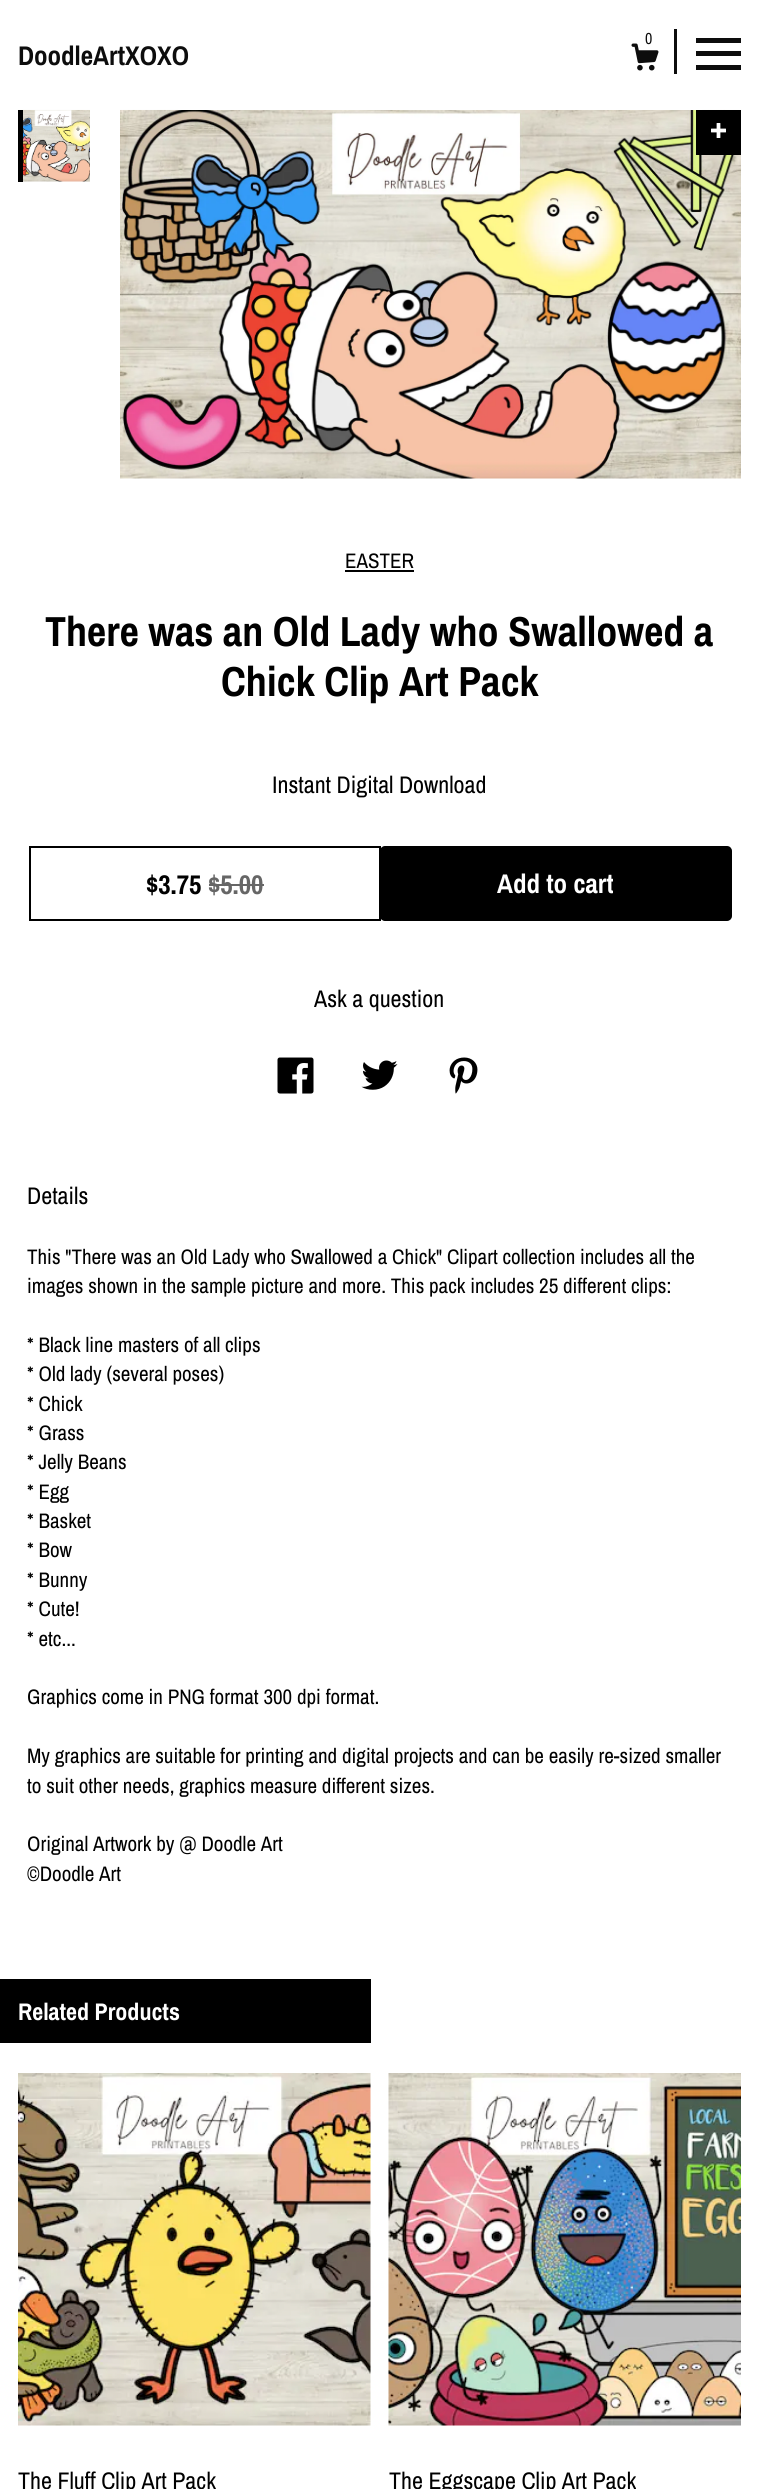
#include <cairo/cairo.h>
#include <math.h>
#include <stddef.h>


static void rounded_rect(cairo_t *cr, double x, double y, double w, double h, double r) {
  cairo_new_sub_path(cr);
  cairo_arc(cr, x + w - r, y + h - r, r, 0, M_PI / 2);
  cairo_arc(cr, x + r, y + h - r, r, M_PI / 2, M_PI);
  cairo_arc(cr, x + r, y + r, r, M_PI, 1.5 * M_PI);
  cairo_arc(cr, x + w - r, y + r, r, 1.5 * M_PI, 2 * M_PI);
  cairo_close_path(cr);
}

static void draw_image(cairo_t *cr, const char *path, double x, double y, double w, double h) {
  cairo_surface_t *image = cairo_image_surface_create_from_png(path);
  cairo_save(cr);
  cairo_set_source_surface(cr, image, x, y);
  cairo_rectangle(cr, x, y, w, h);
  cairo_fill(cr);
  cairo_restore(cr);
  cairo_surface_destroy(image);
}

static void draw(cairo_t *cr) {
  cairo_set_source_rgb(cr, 1, 1, 1);
  cairo_paint(cr);
  draw_image(cr, "images/2.png", 18, 109, 72, 73);
  draw_image(cr, "images/3.png", 120, 109, 621, 370);
  cairo_set_source_rgba(cr, 1, 1, 1, 0.95);
  cairo_rectangle(cr, 18, 109, 723, 1);
  cairo_fill(cr);
  cairo_rectangle(cr, 178, 109, 524, 1);
  cairo_fill(cr);
  draw_image(cr, "images/1.png", 631, 43, 28, 28);
  cairo_set_source_rgb(cr, 13 / 255.0, 13 / 255.0, 13 / 255.0);
  cairo_rectangle(cr, 674, 29, 3, 45);
  cairo_fill(cr);
  cairo_rectangle(cr, 696, 38, 45, 5);
  cairo_fill(cr);
  cairo_rectangle(cr, 696, 51, 45, 5);
  cairo_fill(cr);
  cairo_rectangle(cr, 696, 65, 45, 5);
  cairo_fill(cr);
  cairo_set_source_rgb(cr, 0, 0, 0);
  cairo_rectangle(cr, 18, 110, 5, 72);
  cairo_fill(cr);
  cairo_rectangle(cr, 696, 110, 45, 45);
  cairo_fill(cr);
  draw_image(cr, "images/4.png", 711, 123, 15, 15);
  cairo_rectangle(cr, 345, 570, 69, 2);
  cairo_fill(cr);
  rounded_rect(cr, 381, 847, 350, 73, 4);
  cairo_fill_preserve(cr);
  cairo_stroke(cr);
  cairo_rectangle(cr, 30, 847, 350, 73);
  cairo_stroke(cr);
  cairo_set_source_rgb(cr, 102 / 255.0, 102 / 255.0, 102 / 255.0);
  cairo_rectangle(cr, 209, 884, 55, 2);
  cairo_fill(cr);
  draw_image(cr, "images/5.png", 277, 1057, 37, 37);
  draw_image(cr, "images/6.png", 361, 1060, 37, 30);
  draw_image(cr, "images/7.png", 449, 1057, 29, 37);
  cairo_set_source_rgb(cr, 0, 0, 0);
  cairo_rectangle(cr, 0, 1979, 371, 64);
  cairo_fill(cr);
  draw_image(cr, "images/8.png", 18, 2073, 353, 353);
  draw_image(cr, "images/9.png", 388, 2073, 353, 353);
  cairo_select_font_face(cr, "Archivo Narrow", CAIRO_FONT_SLANT_NORMAL, CAIRO_FONT_WEIGHT_NORMAL);
  cairo_set_font_size(cr, 16);
  cairo_set_source_rgb(cr, 13 / 255.0, 13 / 255.0, 13 / 255.0);
  cairo_move_to(cr, 645, 44);
  cairo_show_text(cr, "0");
  cairo_select_font_face(cr, "Archivo Narrow", CAIRO_FONT_SLANT_NORMAL, CAIRO_FONT_WEIGHT_BOLD);
  cairo_set_font_size(cr, 27);
  cairo_move_to(cr, 18, 65);
  cairo_show_text(cr, "DoodleArtXOXO");
  cairo_select_font_face(cr, "Archivo Narrow", CAIRO_FONT_SLANT_NORMAL, CAIRO_FONT_WEIGHT_NORMAL);
  cairo_set_font_size(cr, 21);
  cairo_set_source_rgb(cr, 0, 0, 0);
  cairo_move_to(cr, 345, 568);
  cairo_show_text(cr, "EASTER");
  cairo_select_font_face(cr, "Archivo Narrow", CAIRO_FONT_SLANT_NORMAL, CAIRO_FONT_WEIGHT_BOLD);
  cairo_set_font_size(cr, 42);
  cairo_move_to(cr, 45, 646);
  cairo_show_text(cr, "There was an Old Lady who Swallowed a");
  cairo_move_to(cr, 221, 696);
  cairo_show_text(cr, "Chick Clip Art Pack");
  cairo_set_font_size(cr, 27);
  cairo_move_to(cr, 146, 894);
  cairo_show_text(cr, "$3.75");
  cairo_set_source_rgb(cr, 102 / 255.0, 102 / 255.0, 102 / 255.0);
  cairo_move_to(cr, 208, 894);
  cairo_show_text(cr, "$5.00");
  cairo_select_font_face(cr, "Archivo Narrow", CAIRO_FONT_SLANT_NORMAL, CAIRO_FONT_WEIGHT_NORMAL);
  cairo_set_font_size(cr, 24);
  cairo_set_source_rgb(cr, 0, 0, 0);
  cairo_move_to(cr, 272, 793);
  cairo_show_text(cr, "Instant Digital Download");
  cairo_select_font_face(cr, "Archivo Narrow", CAIRO_FONT_SLANT_NORMAL, CAIRO_FONT_WEIGHT_BOLD);
  cairo_set_font_size(cr, 27);
  cairo_set_source_rgb(cr, 1, 1, 1);
  cairo_move_to(cr, 497, 893);
  cairo_show_text(cr, "Add to cart");
  cairo_select_font_face(cr, "Archivo Narrow", CAIRO_FONT_SLANT_NORMAL, CAIRO_FONT_WEIGHT_NORMAL);
  cairo_set_font_size(cr, 24);
  cairo_set_source_rgb(cr, 0, 0, 0);
  cairo_move_to(cr, 314, 1007);
  cairo_show_text(cr, "Ask a question");
  cairo_move_to(cr, 27, 1204);
  cairo_show_text(cr, "Details");
  cairo_set_font_size(cr, 21);
  cairo_move_to(cr, 27, 1264);
  cairo_show_text(cr, "This \"There was an Old Lady who Swallowed a Chick\" Clipart collection includes all the");
  cairo_move_to(cr, 27, 1293);
  cairo_show_text(cr, "images shown in the sample picture and more. This pack includes 25 different clips:");
  cairo_move_to(cr, 27, 1352);
  cairo_show_text(cr, "* Black line masters of all clips");
  cairo_move_to(cr, 27, 1381);
  cairo_show_text(cr, "* Old lady (several poses)");
  cairo_move_to(cr, 27, 1411);
  cairo_show_text(cr, "* Chick");
  cairo_move_to(cr, 27, 1440);
  cairo_show_text(cr, "* Grass");
  cairo_move_to(cr, 27, 1469);
  cairo_show_text(cr, "* Jelly Beans");
  cairo_move_to(cr, 27, 1499);
  cairo_show_text(cr, "* Egg");
  cairo_move_to(cr, 27, 1528);
  cairo_show_text(cr, "* Basket");
  cairo_move_to(cr, 27, 1557);
  cairo_show_text(cr, "* Bow");
  cairo_move_to(cr, 27, 1587);
  cairo_show_text(cr, "* Bunny");
  cairo_move_to(cr, 27, 1616);
  cairo_show_text(cr, "* Cute!");
  cairo_move_to(cr, 27, 1646);
  cairo_show_text(cr, "* etc...");
  cairo_move_to(cr, 27, 1704);
  cairo_show_text(cr, "Graphics come in PNG format 300 dpi format.");
  cairo_move_to(cr, 27, 1763);
  cairo_show_text(cr, "My graphics are suitable for printing and digital projects and can be easily re-sized smaller");
  cairo_move_to(cr, 27, 1793);
  cairo_show_text(cr, "to suit other needs, graphics measure different sizes.");
  cairo_move_to(cr, 27, 1851);
  cairo_show_text(cr, "Original Artwork by @ Doodle Art");
  cairo_move_to(cr, 27, 1881);
  cairo_show_text(cr, "©Doodle Art");
  cairo_select_font_face(cr, "Archivo Narrow", CAIRO_FONT_SLANT_NORMAL, CAIRO_FONT_WEIGHT_BOLD);
  cairo_set_font_size(cr, 24);
  cairo_set_source_rgb(cr, 1, 1, 1);
  cairo_move_to(cr, 18, 2020);
  cairo_show_text(cr, "Related Products");
  cairo_select_font_face(cr, "Archivo Narrow", CAIRO_FONT_SLANT_NORMAL, CAIRO_FONT_WEIGHT_NORMAL);
  cairo_set_source_rgb(cr, 0, 0, 0);
  cairo_move_to(cr, 18, 2489);
  cairo_show_text(cr, "The Fluff Clip Art Pack");
  cairo_move_to(cr, 389, 2489);
  cairo_show_text(cr, "The Eggscape Clip Art Pack");
}

int main(void) {
  cairo_surface_t *surface = cairo_image_surface_create(CAIRO_FORMAT_RGB24, 759, 2489);
  cairo_t *cr = cairo_create(surface);
  cairo_font_options_t *options = cairo_font_options_create();
  cairo_font_options_set_hint_metrics(options, CAIRO_HINT_METRICS_OFF);
  cairo_font_options_set_hint_style(options, CAIRO_HINT_STYLE_NONE);
  cairo_set_font_options(cr, options);
  cairo_set_miter_limit(cr, 4);
  draw(cr);
  cairo_surface_write_to_png(surface, "out.png");
  cairo_font_options_destroy(options);
  cairo_destroy(cr);
  cairo_surface_destroy(surface);
  return 0;
}
